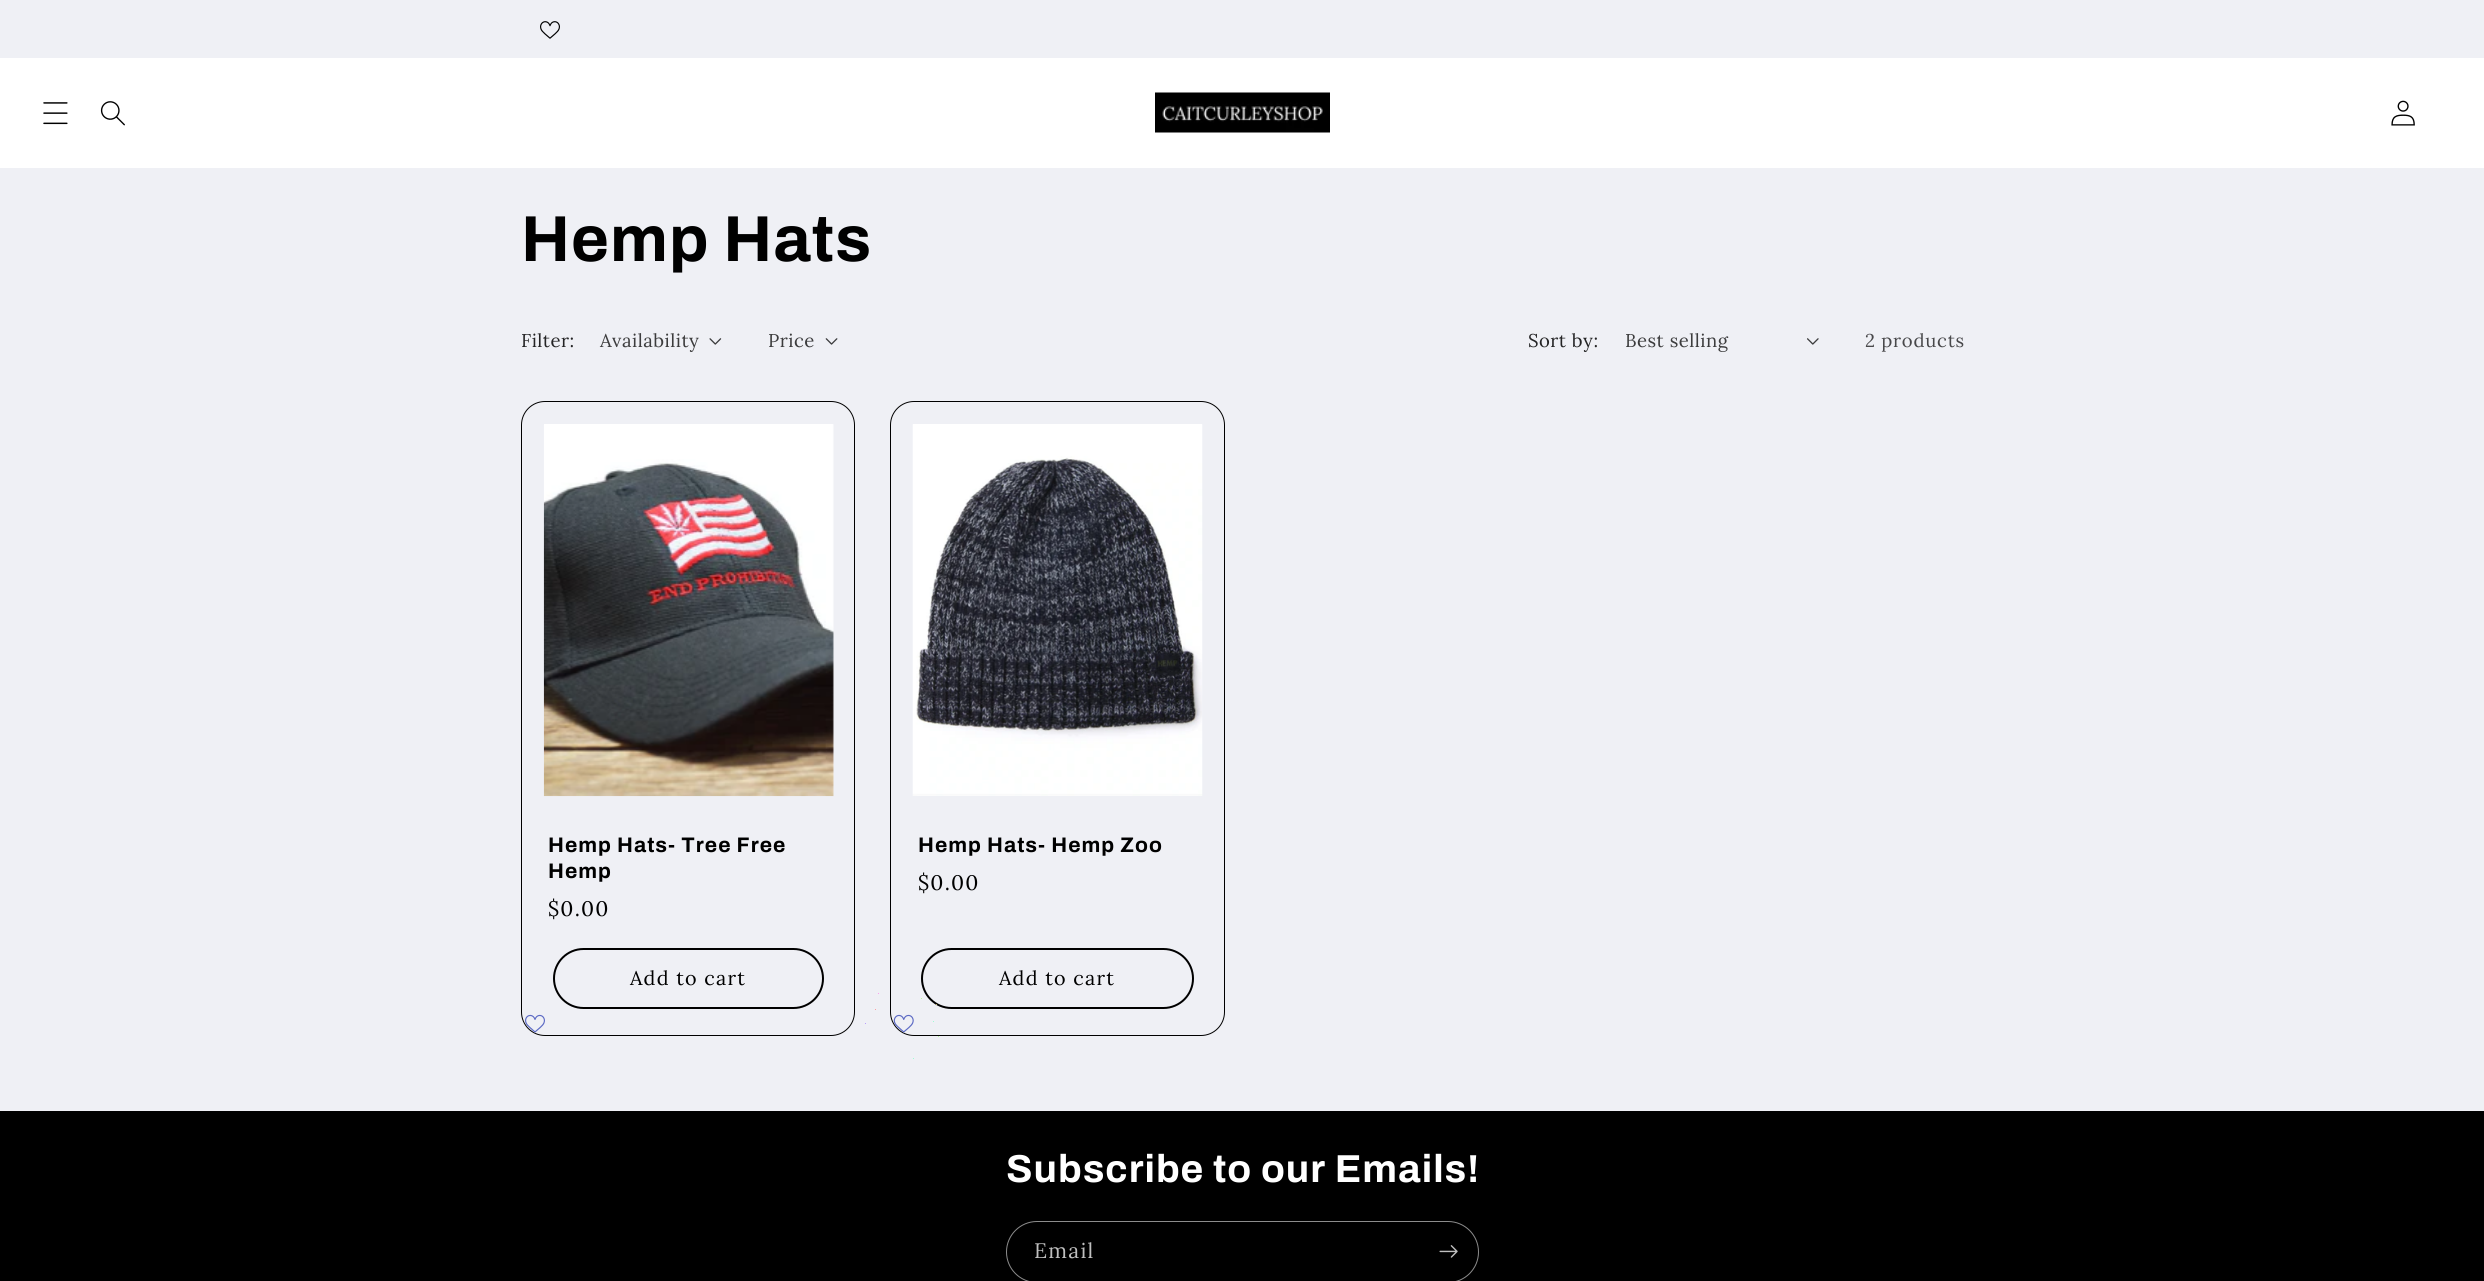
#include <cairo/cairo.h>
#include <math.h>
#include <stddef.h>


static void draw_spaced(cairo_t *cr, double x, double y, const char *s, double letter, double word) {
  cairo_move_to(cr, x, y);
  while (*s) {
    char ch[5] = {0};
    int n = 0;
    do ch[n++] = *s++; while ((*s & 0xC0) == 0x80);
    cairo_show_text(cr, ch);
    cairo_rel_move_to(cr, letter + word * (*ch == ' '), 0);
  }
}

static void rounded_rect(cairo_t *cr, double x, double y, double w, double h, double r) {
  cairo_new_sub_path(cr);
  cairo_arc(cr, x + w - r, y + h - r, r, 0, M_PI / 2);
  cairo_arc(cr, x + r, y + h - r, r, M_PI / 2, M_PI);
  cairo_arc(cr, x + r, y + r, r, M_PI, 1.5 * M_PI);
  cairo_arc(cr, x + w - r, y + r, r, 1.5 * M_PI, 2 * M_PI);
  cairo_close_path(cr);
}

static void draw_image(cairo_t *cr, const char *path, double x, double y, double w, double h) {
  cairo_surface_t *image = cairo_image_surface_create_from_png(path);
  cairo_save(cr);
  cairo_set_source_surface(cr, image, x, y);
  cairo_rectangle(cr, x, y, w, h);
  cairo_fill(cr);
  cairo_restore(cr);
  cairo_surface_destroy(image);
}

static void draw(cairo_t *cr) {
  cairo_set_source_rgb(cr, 239 / 255.0, 240 / 255.0, 245 / 255.0);
  cairo_paint(cr);
  draw_image(cr, "images/1.png", 540, 21, 20, 18);
  cairo_set_source_rgb(cr, 1, 1, 1);
  cairo_rectangle(cr, 0, 58, 2484, 110);
  cairo_fill(cr);
  draw_image(cr, "images/2.png", 43, 102, 25, 23);
  draw_image(cr, "images/3.png", 100, 101, 25, 25);
  draw_image(cr, "images/4.png", 1155, 92, 175, 41);
  draw_image(cr, "images/5.png", 2391, 100, 24, 26);
  draw_image(cr, "images/6.png", 709, 338, 13, 7);
  draw_image(cr, "images/7.png", 825, 338, 13, 7);
  draw_image(cr, "images/8.png", 1807, 338, 12, 7);
  rounded_rect(cr, 521.5, 401.5, 333, 634, 23.5);
  cairo_set_source_rgb(cr, 0, 0, 0);
  cairo_set_line_width(cr, 1);
  cairo_stroke(cr);
  draw_image(cr, "images/9.png", 543, 424, 291, 373);
  draw_image(cr, "images/10.png", 525, 1014, 20, 19);
  rounded_rect(cr, 554, 949, 269, 59, 29.5);
  cairo_set_line_width(cr, 2);
  cairo_stroke(cr);
  rounded_rect(cr, 890.5, 401.5, 334, 634, 23.5);
  cairo_set_line_width(cr, 1);
  cairo_stroke(cr);
  draw_image(cr, "images/11.png", 912, 424, 291, 372);
  cairo_set_source_rgb(cr, 1, 128 / 255.0, 128 / 255.0);
  cairo_arc(cr, 875.5, 1009.5, 0.5, 0, 2 * M_PI);
  cairo_fill(cr);
  cairo_set_source_rgb(cr, 1, 128 / 255.0, 237 / 255.0);
  cairo_arc(cr, 878.5, 993.5, 0.5, 0, 2 * M_PI);
  cairo_fill(cr);
  cairo_set_source_rgb(cr, 164 / 255.0, 128 / 255.0, 1);
  cairo_arc(cr, 865.5, 1023.5, 0.5, 0, 2 * M_PI);
  cairo_fill(cr);
  cairo_set_source_rgb(cr, 128 / 255.0, 1, 200 / 255.0);
  cairo_arc(cr, 913.5, 1058.5, 0.5, 0, 2 * M_PI);
  cairo_fill(cr);
  cairo_arc(cr, 933.5, 1021.5, 0.5, 0, 2 * M_PI);
  cairo_fill(cr);
  cairo_set_source_rgb(cr, 164 / 255.0, 1, 128 / 255.0);
  cairo_arc(cr, 938.5, 1036.5, 0.5, 0, 2 * M_PI);
  cairo_fill(cr);
  rounded_rect(cr, 922, 949, 271, 59, 29.5);
  cairo_set_source_rgb(cr, 0, 0, 0);
  cairo_set_line_width(cr, 2);
  cairo_stroke(cr);
  cairo_set_source_rgb(cr, 164 / 255.0, 1, 128 / 255.0);
  cairo_arc(cr, 921.5, 998.5, 0.5, 0, 2 * M_PI);
  cairo_fill(cr);
  cairo_set_source_rgb(cr, 1, 237 / 255.0, 128 / 255.0);
  cairo_arc(cr, 936.5, 1004.5, 0.5, 0, 2 * M_PI);
  cairo_fill(cr);
  draw_image(cr, "images/12.png", 893, 1014, 21, 19);
  cairo_set_source_rgb(cr, 0, 0, 0);
  cairo_rectangle(cr, 0, 1111, 2484, 170);
  cairo_fill(cr);
  rounded_rect(cr, 1006.5, 1221.5, 472, 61, 30.5);
  cairo_set_source_rgb(cr, 140 / 255.0, 140 / 255.0, 140 / 255.0);
  cairo_set_line_width(cr, 1);
  cairo_stroke(cr);
  draw_image(cr, "images/13.png", 1439, 1245, 19, 13);
  cairo_select_font_face(cr, "Archivo", CAIRO_FONT_SLANT_NORMAL, CAIRO_FONT_WEIGHT_BOLD);
  cairo_set_font_size(cr, 65);
  cairo_set_source_rgb(cr, 0, 0, 0);
  draw_spaced(cr, 521, 261, "Hemp Hats", 1, 0);
  cairo_select_font_face(cr, "Lora", CAIRO_FONT_SLANT_NORMAL, CAIRO_FONT_WEIGHT_NORMAL);
  cairo_set_font_size(cr, 18.5);
  cairo_set_source_rgb(cr, 36 / 255.0, 36 / 255.0, 37 / 255.0);
  draw_spaced(cr, 521, 347, "Filter:", 0.5, 0);
  cairo_set_source_rgb(cr, 60 / 255.0, 60 / 255.0, 61 / 255.0);
  draw_spaced(cr, 600, 347, "Availability", 0.5, 0);
  draw_spaced(cr, 768, 347, "Price", 0.5, 0);
  cairo_set_source_rgb(cr, 36 / 255.0, 36 / 255.0, 37 / 255.0);
  draw_spaced(cr, 1528, 347, "Sort by:", 0.5, 0);
  cairo_set_source_rgb(cr, 60 / 255.0, 60 / 255.0, 61 / 255.0);
  draw_spaced(cr, 1625, 347, "Best selling", 0.5, 0);
  cairo_set_source_rgb(cr, 72 / 255.0, 72 / 255.0, 74 / 255.0);
  draw_spaced(cr, 1865, 347, "2 products", 0.75, 0);
  cairo_select_font_face(cr, "Archivo", CAIRO_FONT_SLANT_NORMAL, CAIRO_FONT_WEIGHT_BOLD);
  cairo_set_font_size(cr, 21.1);
  cairo_set_source_rgb(cr, 0, 0, 0);
  draw_spaced(cr, 548, 852, "Hemp Hats- Tree Free", 1, 0);
  draw_spaced(cr, 548, 878, "Hemp", 1, 0);
  cairo_select_font_face(cr, "Lora", CAIRO_FONT_SLANT_NORMAL, CAIRO_FONT_WEIGHT_NORMAL);
  cairo_set_font_size(cr, 21);
  draw_spaced(cr, 548, 916, "$0.00", 1.25, 0);
  cairo_set_font_size(cr, 19.75);
  draw_spaced(cr, 630, 985, "Add to cart", 1.25, 0);
  cairo_select_font_face(cr, "Archivo", CAIRO_FONT_SLANT_NORMAL, CAIRO_FONT_WEIGHT_BOLD);
  cairo_set_font_size(cr, 21.1);
  draw_spaced(cr, 918, 852, "Hemp Hats- Hemp Zoo", 1, 0);
  cairo_select_font_face(cr, "Lora", CAIRO_FONT_SLANT_NORMAL, CAIRO_FONT_WEIGHT_NORMAL);
  cairo_set_font_size(cr, 21);
  draw_spaced(cr, 918, 890, "$0.00", 1.25, 0);
  cairo_set_font_size(cr, 19.75);
  draw_spaced(cr, 999, 985, "Add to cart", 1.25, 0);
  cairo_select_font_face(cr, "Archivo", CAIRO_FONT_SLANT_NORMAL, CAIRO_FONT_WEIGHT_BOLD);
  cairo_set_font_size(cr, 39);
  cairo_set_source_rgb(cr, 1, 1, 1);
  draw_spaced(cr, 1006, 1182, "Subscribe to our Emails!", 1, 0);
  cairo_select_font_face(cr, "Lora", CAIRO_FONT_SLANT_NORMAL, CAIRO_FONT_WEIGHT_NORMAL);
  cairo_set_font_size(cr, 21);
  cairo_set_source_rgb(cr, 191 / 255.0, 191 / 255.0, 191 / 255.0);
  draw_spaced(cr, 1034, 1258, "Email", 1.25, 0);
}

int main(void) {
  cairo_surface_t *surface = cairo_image_surface_create(CAIRO_FORMAT_RGB24, 2484, 1281);
  cairo_t *cr = cairo_create(surface);
  cairo_font_options_t *options = cairo_font_options_create();
  cairo_font_options_set_hint_metrics(options, CAIRO_HINT_METRICS_OFF);
  cairo_font_options_set_hint_style(options, CAIRO_HINT_STYLE_NONE);
  cairo_set_font_options(cr, options);
  cairo_set_miter_limit(cr, 4);
  draw(cr);
  cairo_surface_write_to_png(surface, "out.png");
  cairo_font_options_destroy(options);
  cairo_destroy(cr);
  cairo_surface_destroy(surface);
  return 0;
}
